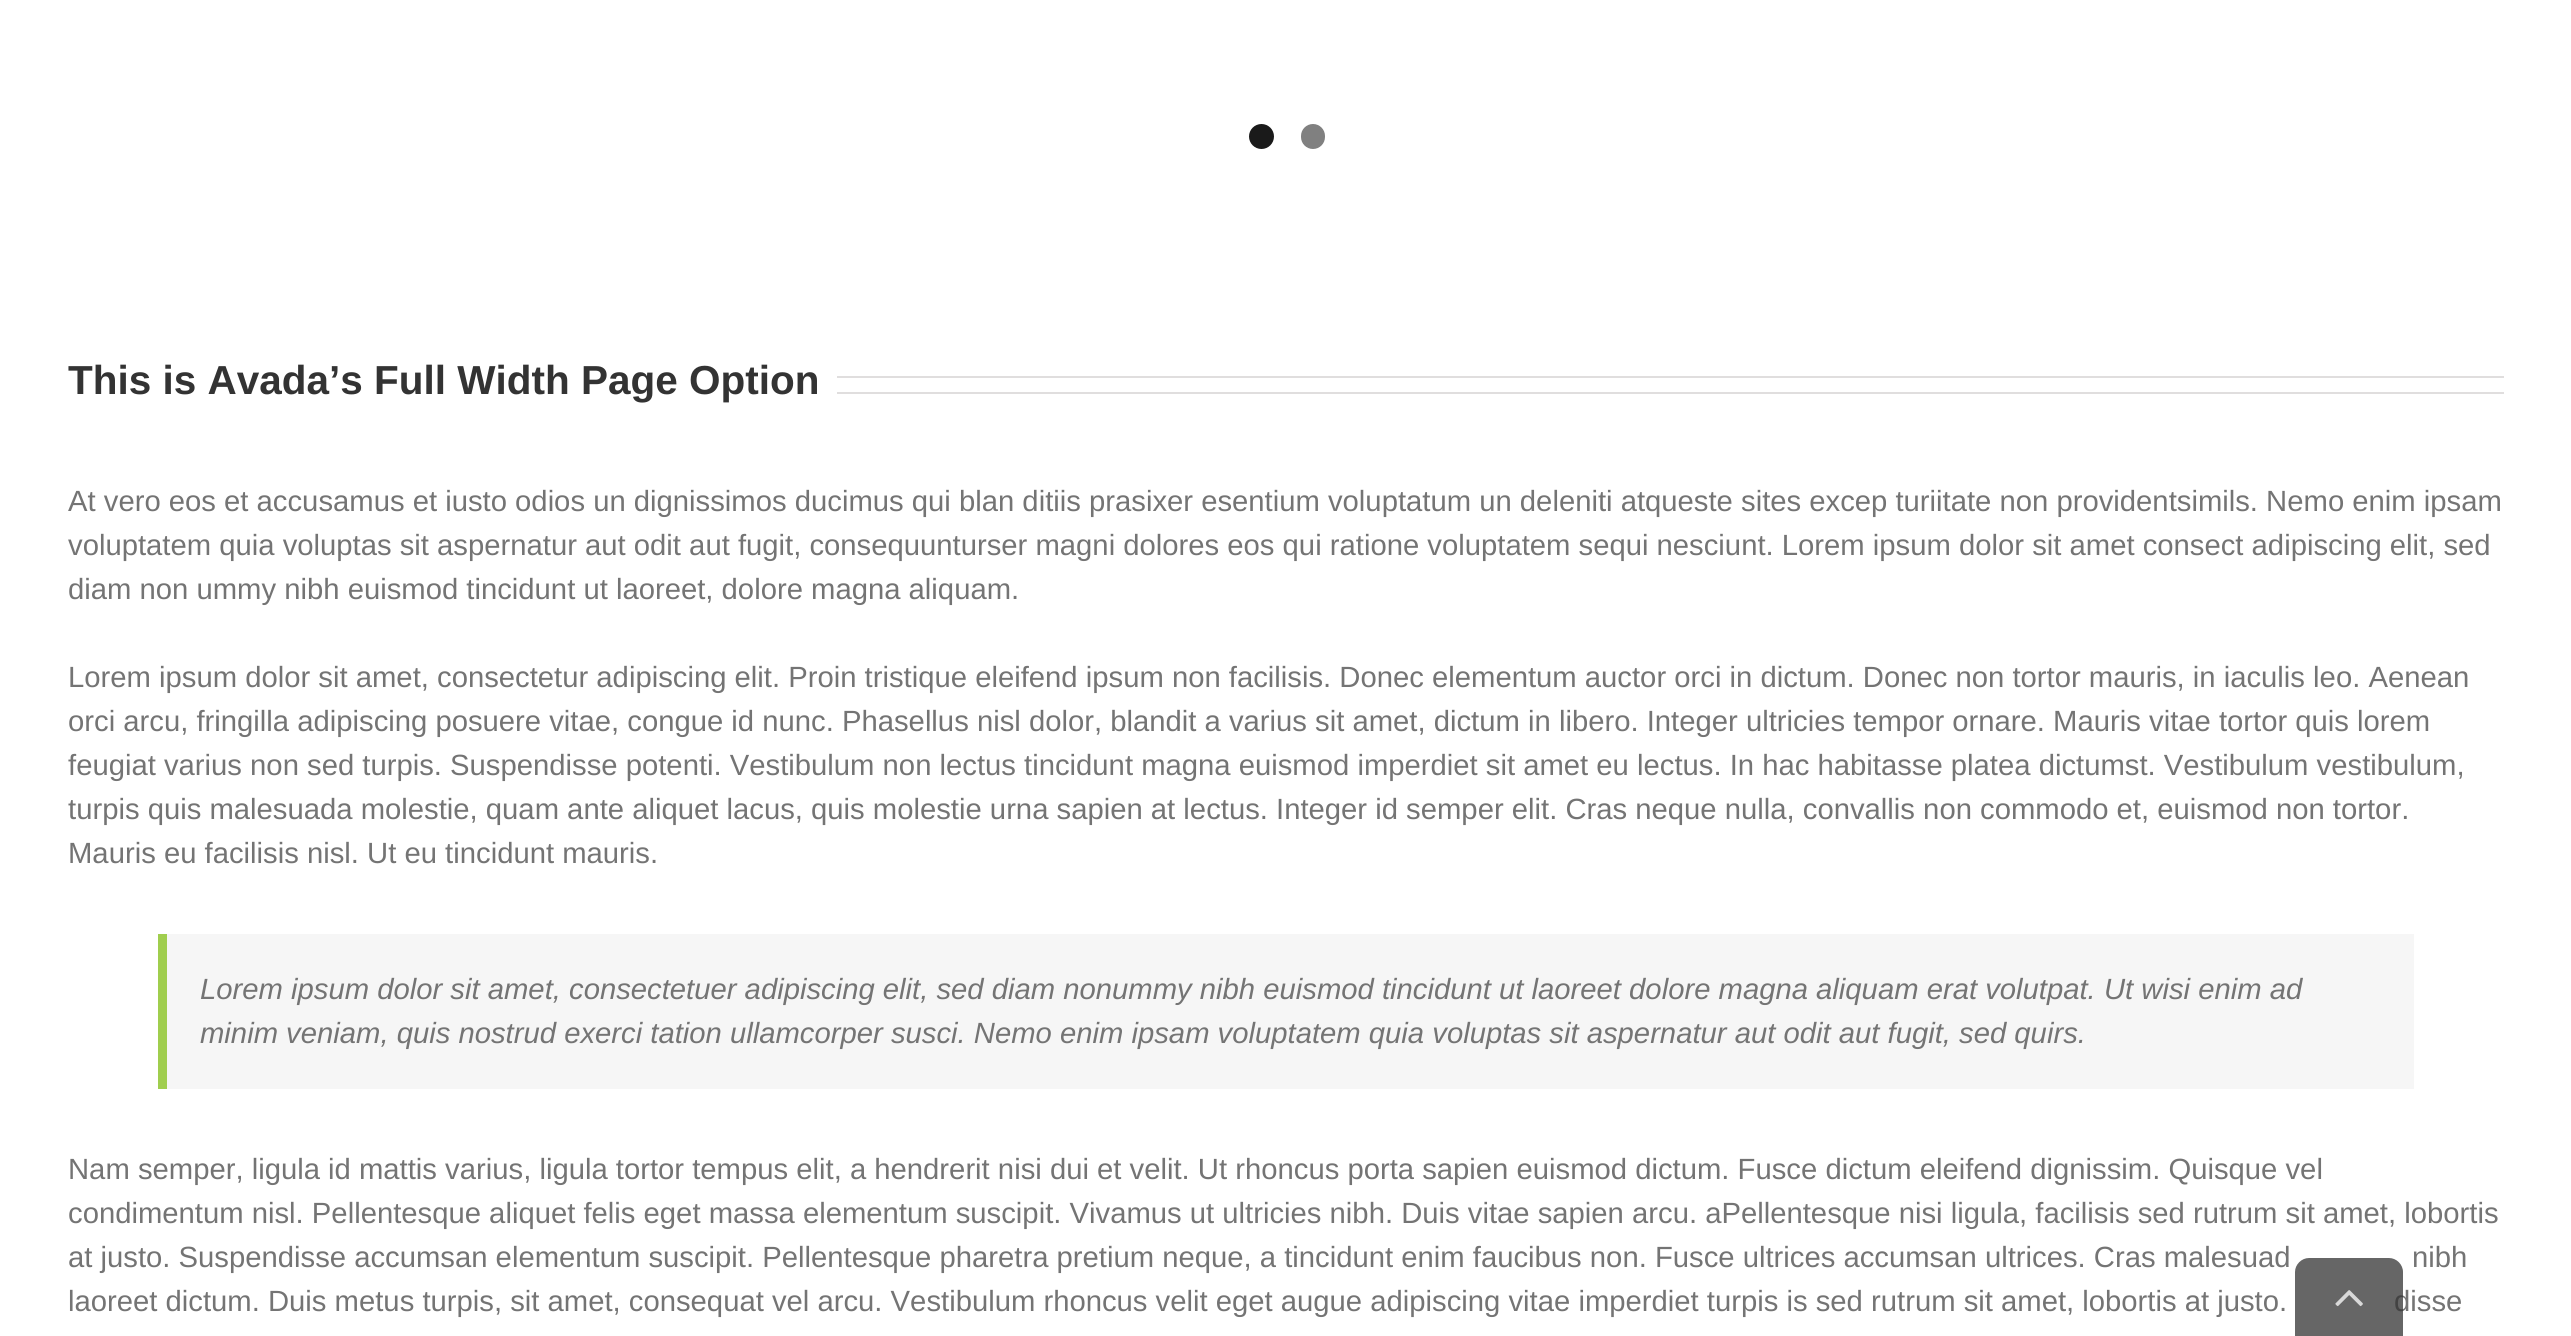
#include <cairo/cairo.h>
#include <math.h>
#include <stddef.h>


static void rounded_rect(cairo_t *cr, double x, double y, double w, double h, double r) {
  cairo_new_sub_path(cr);
  cairo_arc(cr, x + w - r, y + h - r, r, 0, M_PI / 2);
  cairo_arc(cr, x + r, y + h - r, r, M_PI / 2, M_PI);
  cairo_arc(cr, x + r, y + r, r, M_PI, 1.5 * M_PI);
  cairo_arc(cr, x + w - r, y + r, r, 1.5 * M_PI, 2 * M_PI);
  cairo_close_path(cr);
}

static void draw_image(cairo_t *cr, const char *path, double x, double y, double w, double h) {
  cairo_surface_t *image = cairo_image_surface_create_from_png(path);
  cairo_save(cr);
  cairo_set_source_surface(cr, image, x, y);
  cairo_rectangle(cr, x, y, w, h);
  cairo_fill(cr);
  cairo_restore(cr);
  cairo_surface_destroy(image);
}

static void draw(cairo_t *cr) {
  cairo_set_source_rgb(cr, 1, 1, 1);
  cairo_paint(cr);
  cairo_set_source_rgb(cr, 26 / 255.0, 26 / 255.0, 26 / 255.0);
  cairo_arc(cr, 1261.5, 136.5, 12.5, 0, 2 * M_PI);
  cairo_fill(cr);
  cairo_set_source_rgb(cr, 128 / 255.0, 128 / 255.0, 128 / 255.0);
  rounded_rect(cr, 1301, 124, 24, 25, 12);
  cairo_fill(cr);
  cairo_set_source_rgb(cr, 224 / 255.0, 222 / 255.0, 222 / 255.0);
  cairo_rectangle(cr, 837, 376, 1667, 2);
  cairo_fill(cr);
  cairo_rectangle(cr, 837, 392, 1667, 2);
  cairo_fill(cr);
  cairo_set_source_rgb(cr, 246 / 255.0, 246 / 255.0, 246 / 255.0);
  cairo_rectangle(cr, 167, 934, 2247, 155);
  cairo_fill(cr);
  cairo_set_source_rgb(cr, 160 / 255.0, 206 / 255.0, 78 / 255.0);
  cairo_rectangle(cr, 158, 934, 9, 155);
  cairo_fill(cr);
  cairo_select_font_face(cr, "Liberation Sans", CAIRO_FONT_SLANT_NORMAL, CAIRO_FONT_WEIGHT_BOLD);
  cairo_set_font_size(cr, 40.5);
  cairo_set_source_rgb(cr, 51 / 255.0, 51 / 255.0, 51 / 255.0);
  cairo_move_to(cr, 68, 394);
  cairo_show_text(cr, "This is Avada’s Full Width Page Option");
  cairo_select_font_face(cr, "Liberation Sans", CAIRO_FONT_SLANT_NORMAL, CAIRO_FONT_WEIGHT_NORMAL);
  cairo_set_font_size(cr, 29.25);
  cairo_set_source_rgb(cr, 116 / 255.0, 116 / 255.0, 116 / 255.0);
  cairo_move_to(cr, 68, 511);
  cairo_show_text(cr, "At vero eos et accusamus et iusto odios un dignissimos ducimus qui blan ditiis prasixer esentium voluptatum un deleniti atqueste sites excep turiitate non providentsimils. Nemo enim ipsam");
  cairo_move_to(cr, 68, 555);
  cairo_show_text(cr, "voluptatem quia voluptas sit aspernatur aut odit aut fugit, consequunturser magni dolores eos qui ratione voluptatem sequi nesciunt. Lorem ipsum dolor sit amet consect adipiscing elit, sed");
  cairo_move_to(cr, 68, 599);
  cairo_show_text(cr, "diam non ummy nibh euismod tincidunt ut laoreet, dolore magna aliquam.");
  cairo_move_to(cr, 68, 687);
  cairo_show_text(cr, "Lorem ipsum dolor sit amet, consectetur adipiscing elit. Proin tristique eleifend ipsum non facilisis. Donec elementum auctor orci in dictum. Donec non tortor mauris, in iaculis leo. Aenean");
  cairo_move_to(cr, 68, 731);
  cairo_show_text(cr, "orci arcu, fringilla adipiscing posuere vitae, congue id nunc. Phasellus nisl dolor, blandit a varius sit amet, dictum in libero. Integer ultricies tempor ornare. Mauris vitae tortor quis lorem");
  cairo_move_to(cr, 68, 775);
  cairo_show_text(cr, "feugiat varius non sed turpis. Suspendisse potenti. Vestibulum non lectus tincidunt magna euismod imperdiet sit amet eu lectus. In hac habitasse platea dictumst. Vestibulum vestibulum,");
  cairo_move_to(cr, 68, 819);
  cairo_show_text(cr, "turpis quis malesuada molestie, quam ante aliquet lacus, quis molestie urna sapien at lectus. Integer id semper elit. Cras neque nulla, convallis non commodo et, euismod non tortor.");
  cairo_move_to(cr, 68, 863);
  cairo_show_text(cr, "Mauris eu facilisis nisl. Ut eu tincidunt mauris.");
  cairo_select_font_face(cr, "Liberation Sans", CAIRO_FONT_SLANT_ITALIC, CAIRO_FONT_WEIGHT_NORMAL);
  cairo_move_to(cr, 200, 999);
  cairo_show_text(cr, "Lorem ipsum dolor sit amet, consectetuer adipiscing elit, sed diam nonummy nibh euismod tincidunt ut laoreet dolore magna aliquam erat volutpat. Ut wisi enim ad");
  cairo_move_to(cr, 200, 1043);
  cairo_show_text(cr, "minim veniam, quis nostrud exerci tation ullamcorper susci. Nemo enim ipsam voluptatem quia voluptas sit aspernatur aut odit aut fugit, sed quirs.");
  cairo_select_font_face(cr, "Liberation Sans", CAIRO_FONT_SLANT_NORMAL, CAIRO_FONT_WEIGHT_NORMAL);
  cairo_move_to(cr, 68, 1179);
  cairo_show_text(cr, "Nam semper, ligula id mattis varius, ligula tortor tempus elit, a hendrerit nisi dui et velit. Ut rhoncus porta sapien euismod dictum. Fusce dictum eleifend dignissim. Quisque vel");
  cairo_move_to(cr, 68, 1223);
  cairo_show_text(cr, "condimentum nisl. Pellentesque aliquet felis eget massa elementum suscipit. Vivamus ut ultricies nibh. Duis vitae sapien arcu. aPellentesque nisi ligula, facilisis sed rutrum sit amet, lobortis");
  cairo_move_to(cr, 68, 1267);
  cairo_show_text(cr, "at justo. Suspendisse accumsan elementum suscipit. Pellentesque pharetra pretium neque, a tincidunt enim faucibus non. Fusce ultrices accumsan ultrices. Cras malesuad");
  cairo_move_to(cr, 2412, 1267);
  cairo_show_text(cr, "nibh");
  cairo_move_to(cr, 68, 1311);
  cairo_show_text(cr, "laoreet dictum. Duis metus turpis, sit amet, consequat vel arcu. Vestibulum rhoncus velit eget augue adipiscing vitae imperdiet turpis is sed rutrum sit amet, lobortis at justo.");
  cairo_move_to(cr, 2394, 1311);
  cairo_show_text(cr, "disse");
  cairo_set_source_rgba(cr, 51 / 255.0, 51 / 255.0, 51 / 255.0, 0.75);
  cairo_new_path(cr);
  cairo_move_to(cr, 2309, 1258);
  cairo_line_to(cr, 2389, 1258);
  cairo_curve_to(cr, 2396.5, 1258, 2403, 1264.5, 2403, 1272);
  cairo_line_to(cr, 2403, 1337);
  cairo_line_to(cr, 2295, 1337);
  cairo_line_to(cr, 2295, 1272);
  cairo_curve_to(cr, 2295, 1264.5, 2301.5, 1258, 2309, 1258);
  cairo_close_path(cr);
  cairo_fill(cr);
  draw_image(cr, "images/1.png", 2335, 1290, 28, 17);
}

int main(void) {
  cairo_surface_t *surface = cairo_image_surface_create(CAIRO_FORMAT_RGB24, 2571, 1336);
  cairo_t *cr = cairo_create(surface);
  cairo_font_options_t *options = cairo_font_options_create();
  cairo_font_options_set_hint_metrics(options, CAIRO_HINT_METRICS_OFF);
  cairo_font_options_set_hint_style(options, CAIRO_HINT_STYLE_NONE);
  cairo_set_font_options(cr, options);
  cairo_set_miter_limit(cr, 4);
  draw(cr);
  cairo_surface_write_to_png(surface, "out.png");
  cairo_font_options_destroy(options);
  cairo_destroy(cr);
  cairo_surface_destroy(surface);
  return 0;
}
